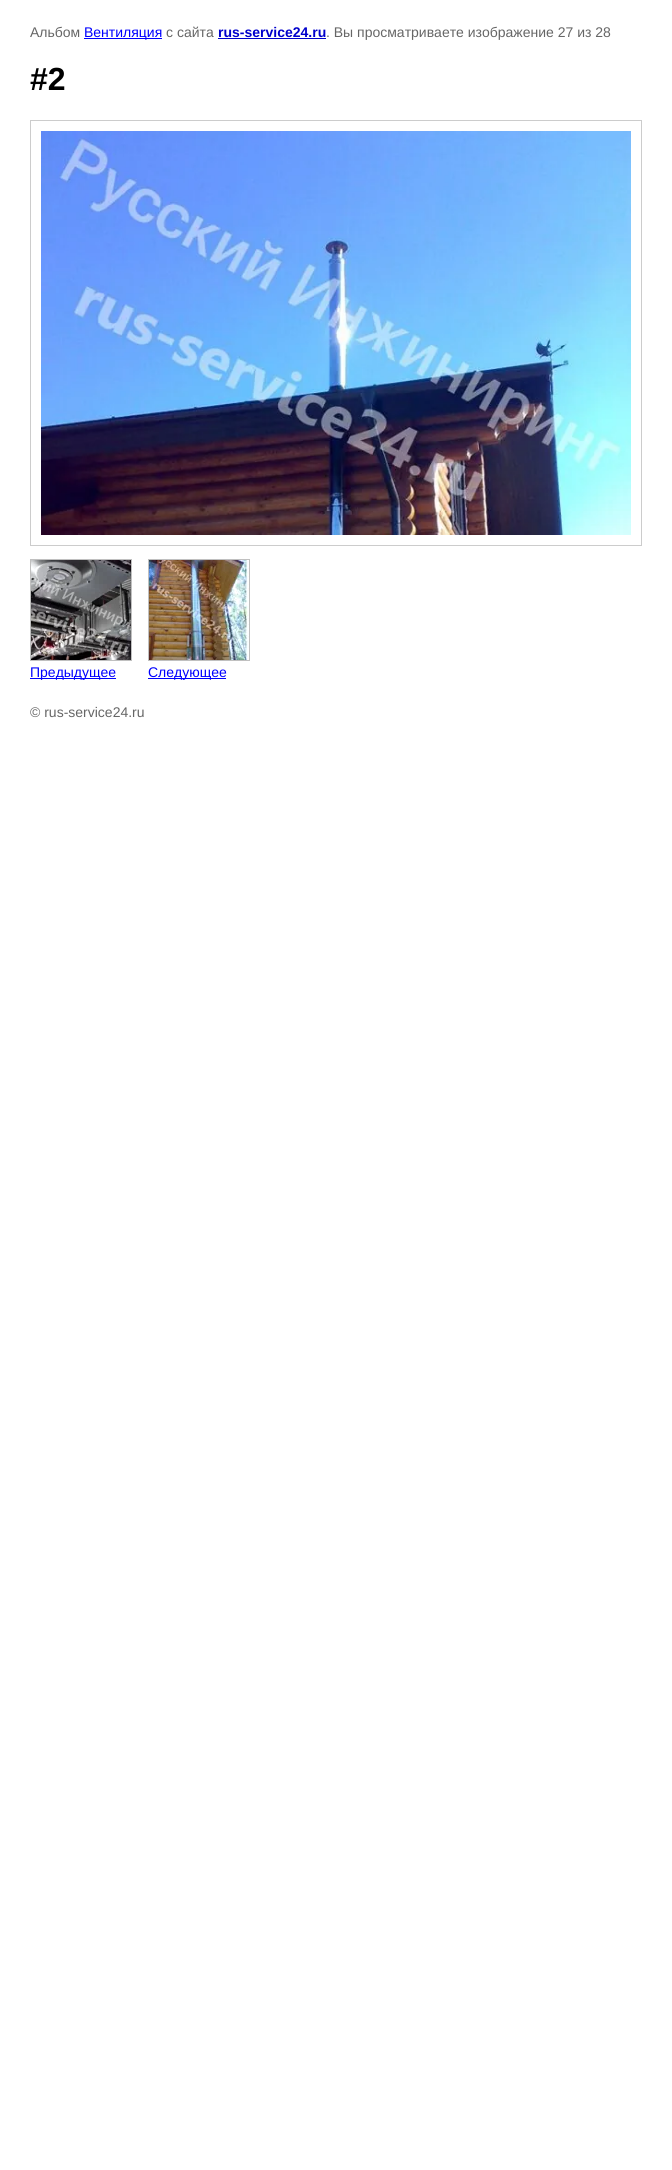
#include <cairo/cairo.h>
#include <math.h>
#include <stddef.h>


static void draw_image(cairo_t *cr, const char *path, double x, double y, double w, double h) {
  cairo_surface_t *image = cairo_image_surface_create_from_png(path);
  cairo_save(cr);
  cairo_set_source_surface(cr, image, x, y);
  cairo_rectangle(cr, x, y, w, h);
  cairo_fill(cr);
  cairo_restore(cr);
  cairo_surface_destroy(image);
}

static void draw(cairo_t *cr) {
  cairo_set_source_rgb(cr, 1, 1, 1);
  cairo_paint(cr);
  cairo_set_source_rgb(cr, 0, 0, 1);
  cairo_rectangle(cr, 84, 38, 78, 1);
  cairo_fill(cr);
  cairo_set_source_rgb(cr, 0, 0, 204 / 255.0);
  cairo_rectangle(cr, 218, 38, 108, 1);
  cairo_fill(cr);
  cairo_rectangle(cr, 30.5, 120.5, 611, 425);
  cairo_set_source_rgb(cr, 204 / 255.0, 204 / 255.0, 204 / 255.0);
  cairo_set_line_width(cr, 1);
  cairo_stroke(cr);
  draw_image(cr, "images/1.png", 41, 131, 590, 404);
  cairo_rectangle(cr, 30.5, 559.5, 101, 101);
  cairo_set_source_rgb(cr, 192 / 255.0, 192 / 255.0, 192 / 255.0);
  cairo_stroke(cr);
  draw_image(cr, "images/2.png", 31, 560, 100, 100);
  cairo_set_source_rgb(cr, 0, 0, 1);
  cairo_rectangle(cr, 30, 678, 86, 1);
  cairo_fill(cr);
  cairo_rectangle(cr, 148.5, 559.5, 101, 101);
  cairo_set_source_rgb(cr, 192 / 255.0, 192 / 255.0, 192 / 255.0);
  cairo_stroke(cr);
  draw_image(cr, "images/3.png", 149, 560, 100, 100);
  cairo_set_source_rgb(cr, 0, 0, 1);
  cairo_rectangle(cr, 148, 678, 78, 1);
  cairo_fill(cr);
  cairo_select_font_face(cr, "Liberation Sans", CAIRO_FONT_SLANT_NORMAL, CAIRO_FONT_WEIGHT_NORMAL);
  cairo_set_font_size(cr, 14);
  cairo_set_source_rgb(cr, 102 / 255.0, 102 / 255.0, 102 / 255.0);
  cairo_move_to(cr, 30, 37);
  cairo_show_text(cr, "Альбом");
  cairo_set_source_rgb(cr, 0, 0, 1);
  cairo_move_to(cr, 84, 37);
  cairo_show_text(cr, "Вентиляция");
  cairo_set_source_rgb(cr, 102 / 255.0, 102 / 255.0, 102 / 255.0);
  cairo_move_to(cr, 166, 37);
  cairo_show_text(cr, "с сайта");
  cairo_select_font_face(cr, "Liberation Sans", CAIRO_FONT_SLANT_NORMAL, CAIRO_FONT_WEIGHT_BOLD);
  cairo_set_source_rgb(cr, 0, 0, 204 / 255.0);
  cairo_move_to(cr, 218, 37);
  cairo_show_text(cr, "rus-service24.ru");
  cairo_select_font_face(cr, "Liberation Sans", CAIRO_FONT_SLANT_NORMAL, CAIRO_FONT_WEIGHT_NORMAL);
  cairo_set_source_rgb(cr, 102 / 255.0, 102 / 255.0, 102 / 255.0);
  cairo_move_to(cr, 326, 37);
  cairo_show_text(cr, ". Вы просматриваете изображение 27 из 28");
  cairo_select_font_face(cr, "Liberation Sans", CAIRO_FONT_SLANT_NORMAL, CAIRO_FONT_WEIGHT_BOLD);
  cairo_set_font_size(cr, 32);
  cairo_set_source_rgb(cr, 0, 0, 0);
  cairo_move_to(cr, 30, 90);
  cairo_show_text(cr, "#2");
  cairo_select_font_face(cr, "Liberation Sans", CAIRO_FONT_SLANT_NORMAL, CAIRO_FONT_WEIGHT_NORMAL);
  cairo_set_font_size(cr, 14);
  cairo_set_source_rgb(cr, 0, 0, 1);
  cairo_move_to(cr, 30, 677);
  cairo_show_text(cr, "Предыдущее");
  cairo_move_to(cr, 148, 677);
  cairo_show_text(cr, "Следующее");
  cairo_set_source_rgb(cr, 102 / 255.0, 102 / 255.0, 102 / 255.0);
  cairo_move_to(cr, 30, 717);
  cairo_show_text(cr, "© rus-service24.ru");
}

int main(void) {
  cairo_surface_t *surface = cairo_image_surface_create(CAIRO_FORMAT_RGB24, 672, 2170);
  cairo_t *cr = cairo_create(surface);
  cairo_font_options_t *options = cairo_font_options_create();
  cairo_font_options_set_hint_metrics(options, CAIRO_HINT_METRICS_OFF);
  cairo_font_options_set_hint_style(options, CAIRO_HINT_STYLE_NONE);
  cairo_set_font_options(cr, options);
  cairo_set_miter_limit(cr, 4);
  draw(cr);
  cairo_surface_write_to_png(surface, "out.png");
  cairo_font_options_destroy(options);
  cairo_destroy(cr);
  cairo_surface_destroy(surface);
  return 0;
}
